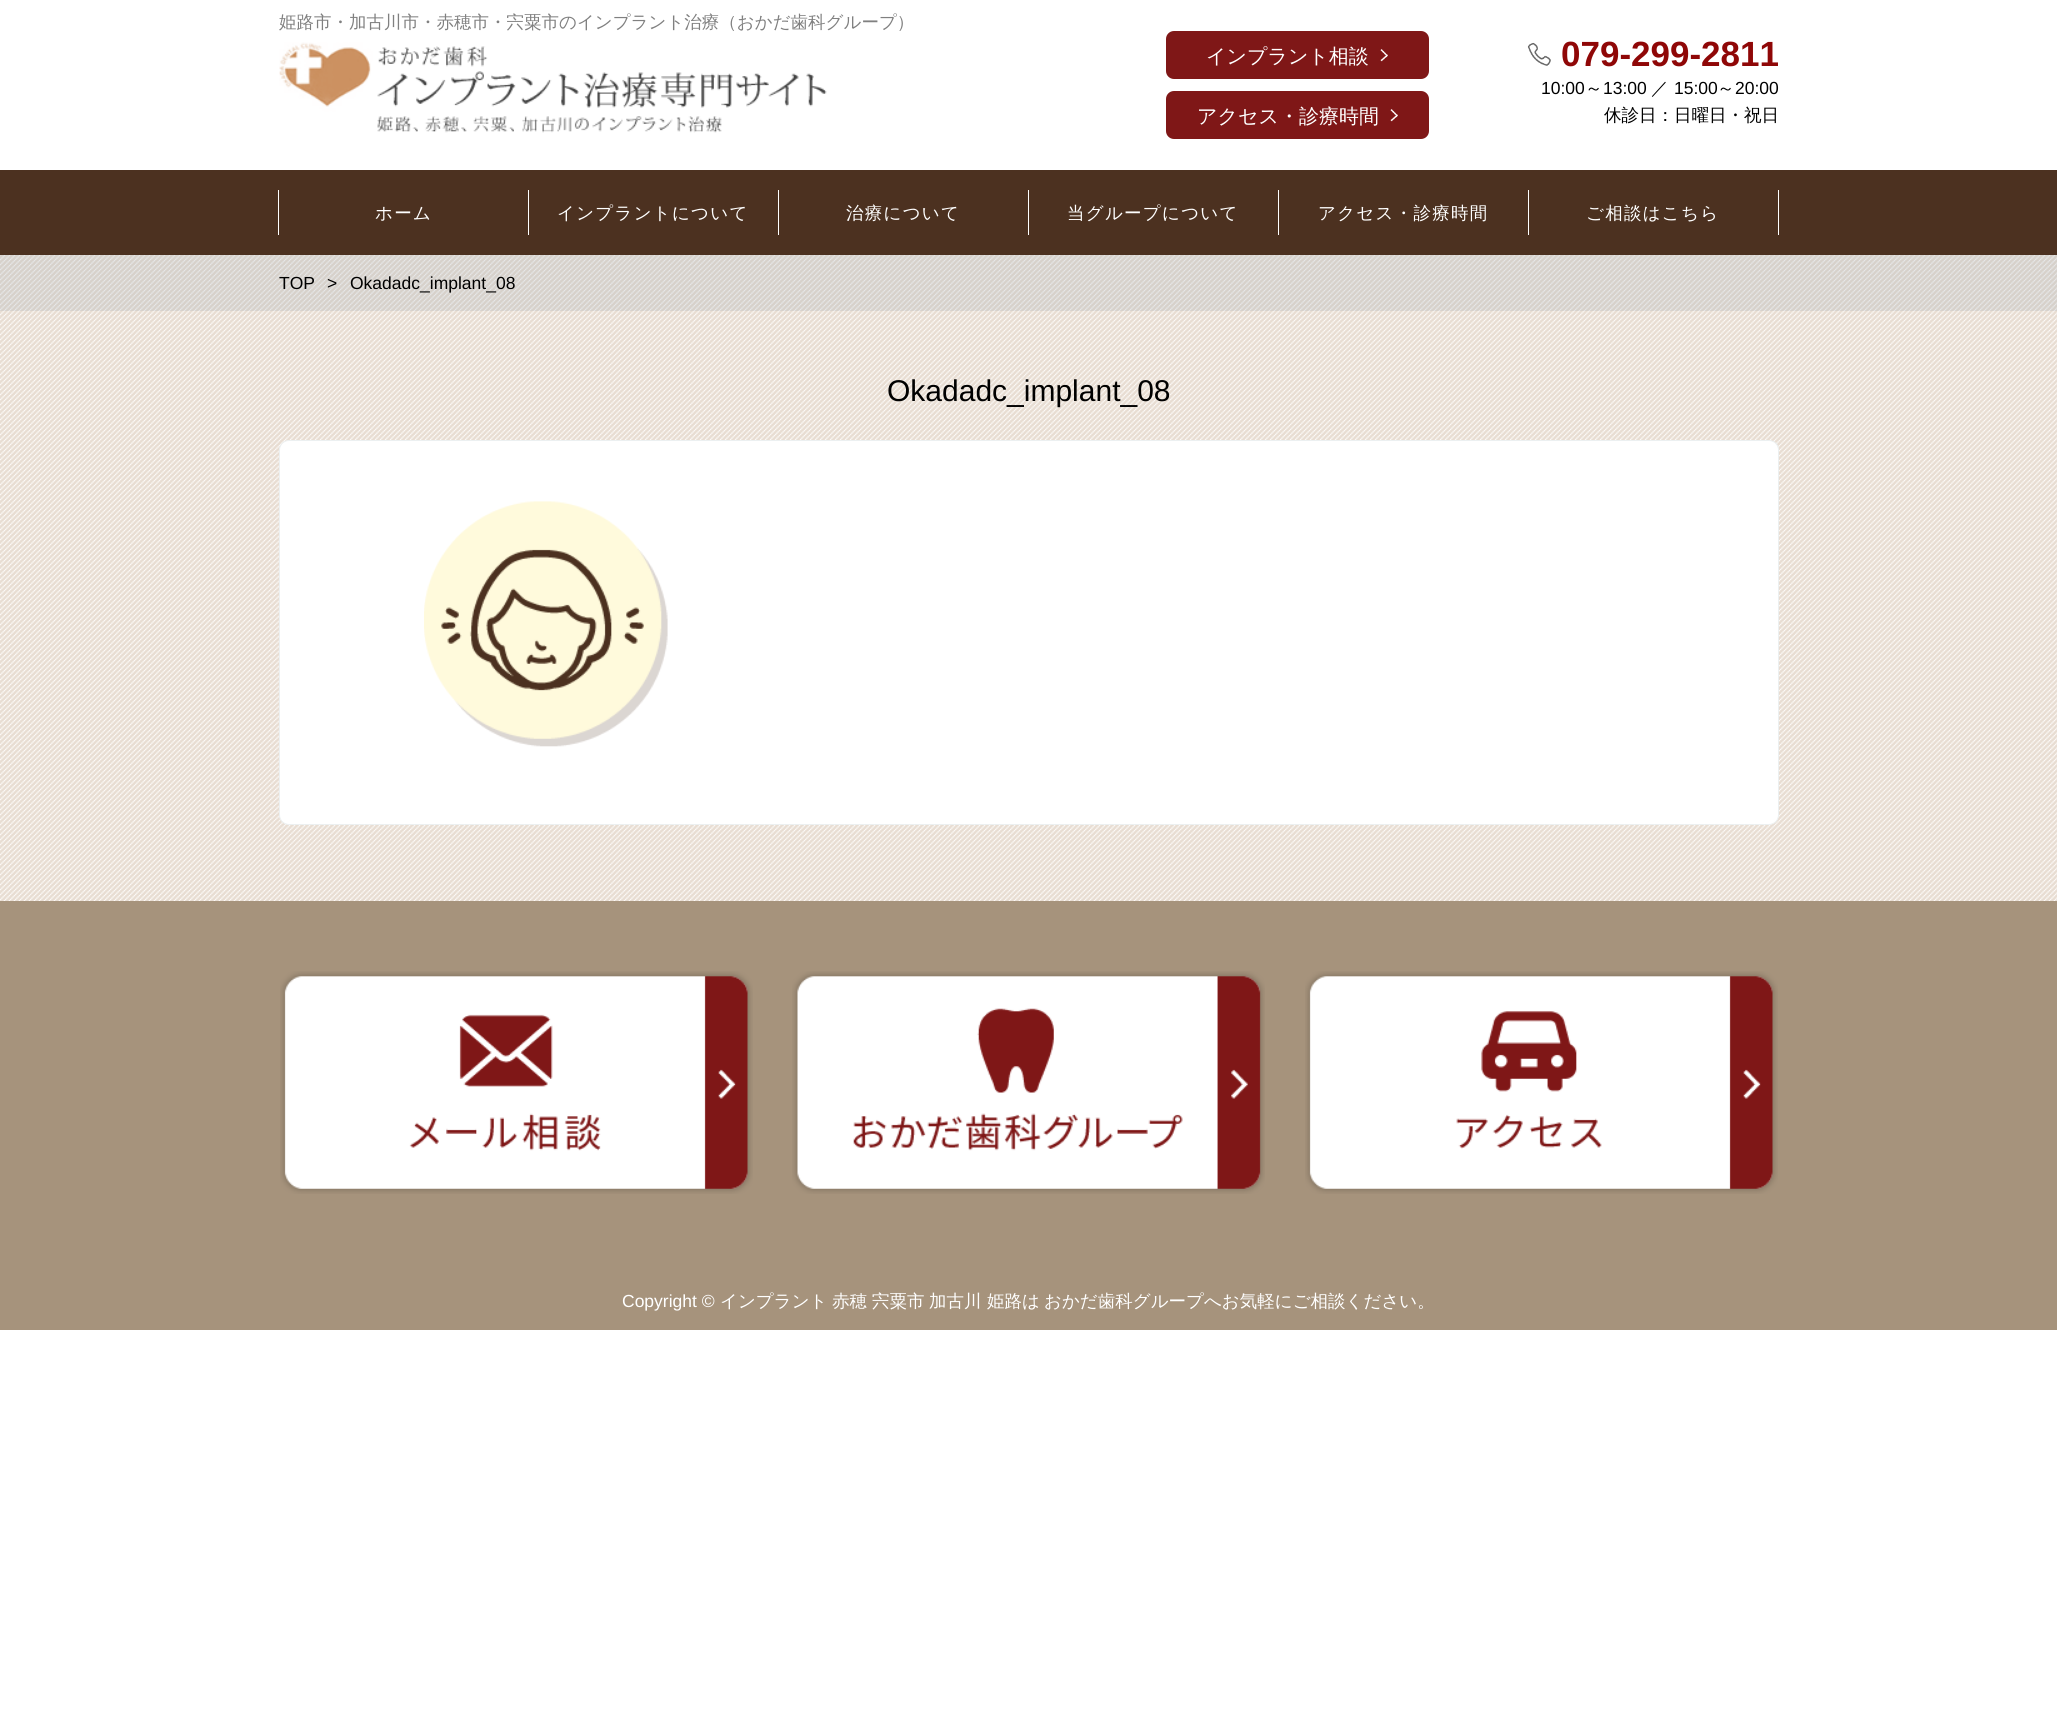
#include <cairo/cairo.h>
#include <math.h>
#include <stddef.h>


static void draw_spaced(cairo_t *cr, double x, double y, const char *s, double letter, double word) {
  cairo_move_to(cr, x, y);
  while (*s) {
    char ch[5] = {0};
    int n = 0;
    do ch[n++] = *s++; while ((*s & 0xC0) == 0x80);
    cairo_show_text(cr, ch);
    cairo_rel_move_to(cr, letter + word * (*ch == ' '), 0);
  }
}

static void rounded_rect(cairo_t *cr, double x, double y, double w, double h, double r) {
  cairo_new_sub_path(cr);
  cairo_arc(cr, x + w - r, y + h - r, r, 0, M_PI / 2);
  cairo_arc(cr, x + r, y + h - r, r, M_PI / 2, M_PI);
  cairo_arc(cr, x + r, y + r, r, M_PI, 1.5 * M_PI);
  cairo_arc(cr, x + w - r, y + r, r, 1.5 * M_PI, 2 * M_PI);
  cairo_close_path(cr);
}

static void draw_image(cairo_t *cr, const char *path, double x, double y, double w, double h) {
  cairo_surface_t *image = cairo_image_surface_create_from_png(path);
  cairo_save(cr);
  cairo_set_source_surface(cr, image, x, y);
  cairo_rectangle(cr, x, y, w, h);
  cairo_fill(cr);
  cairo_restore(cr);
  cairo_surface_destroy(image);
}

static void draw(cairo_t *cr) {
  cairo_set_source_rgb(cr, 1, 1, 1);
  cairo_paint(cr);
  draw_image(cr, "images/1.png", 279, 42, 548, 91);
  cairo_set_source_rgb(cr, 127 / 255.0, 23 / 255.0, 23 / 255.0);
  rounded_rect(cr, 1166, 31, 263, 48, 8);
  cairo_fill(cr);
  draw_image(cr, "images/2.png", 1380, 49, 8, 13);
  rounded_rect(cr, 1166, 91, 263, 48, 8);
  cairo_fill(cr);
  draw_image(cr, "images/2.png", 1390, 109, 8, 13);
  draw_image(cr, "images/3.png", 1527, 42, 24, 24);
  cairo_set_source_rgb(cr, 76 / 255.0, 49 / 255.0, 32 / 255.0);
  cairo_rectangle(cr, 0, 170, 2057, 85);
  cairo_fill(cr);
  cairo_set_source_rgb(cr, 1, 1, 1);
  cairo_rectangle(cr, 278, 190, 1, 45);
  cairo_fill(cr);
  cairo_rectangle(cr, 528, 190, 1, 45);
  cairo_fill(cr);
  cairo_rectangle(cr, 778, 190, 1, 45);
  cairo_fill(cr);
  cairo_rectangle(cr, 1028, 190, 1, 45);
  cairo_fill(cr);
  cairo_rectangle(cr, 1278, 190, 1, 45);
  cairo_fill(cr);
  cairo_rectangle(cr, 1528, 190, 1, 45);
  cairo_fill(cr);
  cairo_rectangle(cr, 1778, 190, 1, 45);
  cairo_fill(cr);
  cairo_set_source_rgb(cr, 232 / 255.0, 221 / 255.0, 210 / 255.0);
  cairo_rectangle(cr, 0, 255, 2057, 646);
  cairo_fill(cr);
  draw_image(cr, "images/4.png", 0, 255, 2057, 646);
  cairo_set_source_rgba(cr, 145 / 255.0, 163 / 255.0, 174 / 255.0, 0.2);
  cairo_rectangle(cr, 0, 255, 2057, 56);
  cairo_fill(cr);
  cairo_set_source_rgb(cr, 1, 1, 1);
  rounded_rect(cr, 279.5, 440.5, 1499, 384, 9.5);
  cairo_fill_preserve(cr);
  cairo_set_source_rgb(cr, 236 / 255.0, 240 / 255.0, 241 / 255.0);
  cairo_set_line_width(cr, 1);
  cairo_stroke(cr);
  draw_image(cr, "images/5.png", 424, 501, 244, 246);
  cairo_set_source_rgb(cr, 166 / 255.0, 147 / 255.0, 124 / 255.0);
  cairo_rectangle(cr, 0, 901, 2057, 429);
  cairo_fill(cr);
  draw_image(cr, "images/6.png", 280, 971, 473, 223);
  draw_image(cr, "images/7.png", 792, 971, 473, 223);
  draw_image(cr, "images/8.png", 1305, 971, 473, 223);
  cairo_select_font_face(cr, "WenQuanYi Zen Hei Medium", CAIRO_FONT_SLANT_NORMAL, CAIRO_FONT_WEIGHT_NORMAL);
  cairo_set_font_size(cr, 17.5);
  cairo_set_source_rgb(cr, 128 / 255.0, 128 / 255.0, 128 / 255.0);
  cairo_move_to(cr, 279, 28);
  cairo_show_text(cr, "姫路市・加古川市・赤穂市・宍粟市のインプラント治療（おかだ歯科グループ）");
  cairo_set_font_size(cr, 20);
  cairo_set_source_rgb(cr, 1, 1, 1);
  cairo_move_to(cr, 1206, 63);
  cairo_show_text(cr, "インプラント相談");
  cairo_move_to(cr, 1197, 123);
  cairo_show_text(cr, "アクセス・診療時間");
  cairo_select_font_face(cr, "Liberation Sans", CAIRO_FONT_SLANT_NORMAL, CAIRO_FONT_WEIGHT_BOLD);
  cairo_set_font_size(cr, 35);
  cairo_set_source_rgb(cr, 143 / 255.0, 7 / 255.0, 7 / 255.0);
  cairo_move_to(cr, 1561, 66);
  cairo_show_text(cr, "079-299-2811");
  cairo_select_font_face(cr, "Liberation Sans", CAIRO_FONT_SLANT_NORMAL, CAIRO_FONT_WEIGHT_NORMAL);
  cairo_set_font_size(cr, 17.5);
  cairo_set_source_rgb(cr, 0, 0, 0);
  cairo_move_to(cr, 1541, 94);
  cairo_show_text(cr, "10:00");
  cairo_select_font_face(cr, "WenQuanYi Zen Hei Medium", CAIRO_FONT_SLANT_NORMAL, CAIRO_FONT_WEIGHT_NORMAL);
  cairo_move_to(cr, 1585, 94);
  cairo_show_text(cr, "～");
  cairo_select_font_face(cr, "Liberation Sans", CAIRO_FONT_SLANT_NORMAL, CAIRO_FONT_WEIGHT_NORMAL);
  cairo_move_to(cr, 1603, 94);
  cairo_show_text(cr, "13:00");
  cairo_select_font_face(cr, "WenQuanYi Zen Hei Medium", CAIRO_FONT_SLANT_NORMAL, CAIRO_FONT_WEIGHT_NORMAL);
  cairo_move_to(cr, 1651, 94);
  cairo_show_text(cr, "／");
  cairo_select_font_face(cr, "Liberation Sans", CAIRO_FONT_SLANT_NORMAL, CAIRO_FONT_WEIGHT_NORMAL);
  cairo_move_to(cr, 1674, 94);
  cairo_show_text(cr, "15:00");
  cairo_select_font_face(cr, "WenQuanYi Zen Hei Medium", CAIRO_FONT_SLANT_NORMAL, CAIRO_FONT_WEIGHT_NORMAL);
  cairo_move_to(cr, 1717, 94);
  cairo_show_text(cr, "～");
  cairo_select_font_face(cr, "Liberation Sans", CAIRO_FONT_SLANT_NORMAL, CAIRO_FONT_WEIGHT_NORMAL);
  cairo_move_to(cr, 1735, 94);
  cairo_show_text(cr, "20:00");
  cairo_select_font_face(cr, "WenQuanYi Zen Hei Medium", CAIRO_FONT_SLANT_NORMAL, CAIRO_FONT_WEIGHT_NORMAL);
  cairo_move_to(cr, 1604, 121);
  cairo_show_text(cr, "休診日：日曜日・祝日");
  cairo_set_source_rgb(cr, 1, 1, 1);
  draw_spaced(cr, 375, 219, "ホーム", 1.25, 0);
  draw_spaced(cr, 557, 219, "インプラントについて", 1.25, 0);
  draw_spaced(cr, 846, 219, "治療について", 1.25, 0);
  draw_spaced(cr, 1067, 219, "当グループについて", 1.25, 0);
  draw_spaced(cr, 1318, 219, "アクセス・診療時間", 1.25, 0);
  draw_spaced(cr, 1586, 219, "ご相談はこちら", 1.25, 0);
  cairo_select_font_face(cr, "Liberation Sans", CAIRO_FONT_SLANT_NORMAL, CAIRO_FONT_WEIGHT_NORMAL);
  cairo_set_source_rgb(cr, 0, 0, 0);
  cairo_move_to(cr, 279, 289);
  cairo_show_text(cr, "TOP");
  cairo_move_to(cr, 327, 289);
  cairo_show_text(cr, ">");
  cairo_move_to(cr, 350, 289);
  cairo_show_text(cr, "Okadadc_implant_08");
  cairo_set_font_size(cr, 30);
  cairo_move_to(cr, 887, 401);
  cairo_show_text(cr, "Okadadc_implant_08");
  cairo_set_font_size(cr, 17.5);
  cairo_set_source_rgb(cr, 1, 1, 1);
  cairo_move_to(cr, 622, 1307);
  cairo_show_text(cr, "Copyright ©");
  cairo_select_font_face(cr, "WenQuanYi Zen Hei Medium", CAIRO_FONT_SLANT_NORMAL, CAIRO_FONT_WEIGHT_NORMAL);
  cairo_move_to(cr, 720, 1307);
  cairo_show_text(cr, "インプラント");
  cairo_move_to(cr, 832, 1307);
  cairo_show_text(cr, "赤穂");
  cairo_move_to(cr, 872, 1307);
  cairo_show_text(cr, "宍粟市");
  cairo_move_to(cr, 929, 1307);
  cairo_show_text(cr, "加古川");
  cairo_move_to(cr, 987, 1307);
  cairo_show_text(cr, "姫路は");
  cairo_move_to(cr, 1044, 1307);
  cairo_show_text(cr, "おかだ歯科グループへお気軽にご相談ください。");
}

int main(void) {
  cairo_surface_t *surface = cairo_image_surface_create(CAIRO_FORMAT_RGB24, 2057, 1723);
  cairo_t *cr = cairo_create(surface);
  cairo_font_options_t *options = cairo_font_options_create();
  cairo_font_options_set_hint_metrics(options, CAIRO_HINT_METRICS_OFF);
  cairo_font_options_set_hint_style(options, CAIRO_HINT_STYLE_NONE);
  cairo_set_font_options(cr, options);
  cairo_set_miter_limit(cr, 4);
  draw(cr);
  cairo_surface_write_to_png(surface, "out.png");
  cairo_font_options_destroy(options);
  cairo_destroy(cr);
  cairo_surface_destroy(surface);
  return 0;
}
